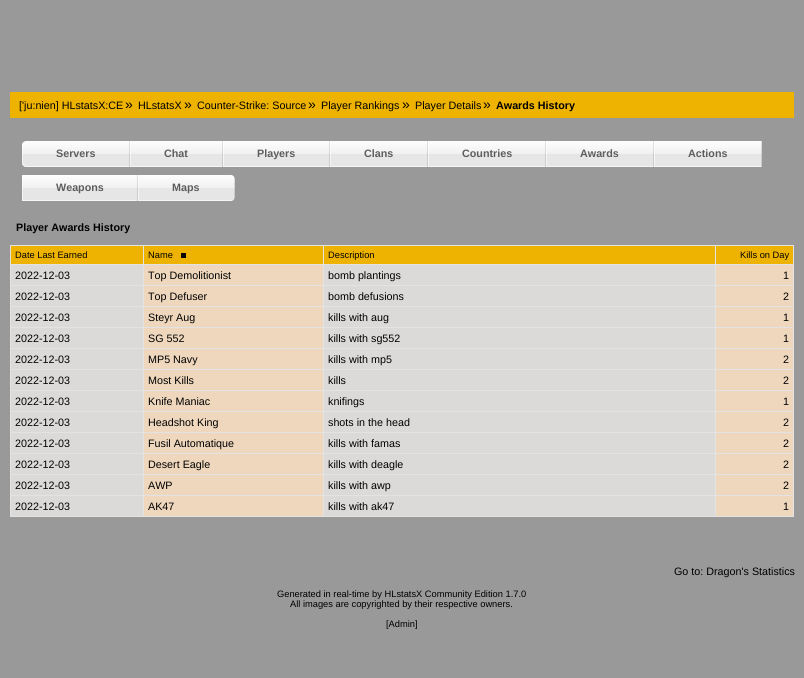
#include <cairo/cairo.h>
#include <math.h>
#include <stddef.h>


static void draw(cairo_t *cr) {
  cairo_pattern_t *gradient;
  cairo_set_source_rgb(cr, 153 / 255.0, 153 / 255.0, 153 / 255.0);
  cairo_paint(cr);
  cairo_set_source_rgb(cr, 238 / 255.0, 179 / 255.0, 0);
  cairo_rectangle(cr, 10, 92, 784, 26);
  cairo_fill(cr);
  gradient = cairo_pattern_create_linear(76, 141, 76, 167);
  cairo_pattern_add_color_stop_rgba(gradient, 0, 254 / 255.0, 254 / 255.0, 254 / 255.0, 1);
  cairo_pattern_add_color_stop_rgba(gradient, 0.5, 240 / 255.0, 240 / 255.0, 240 / 255.0, 1);
  cairo_pattern_add_color_stop_rgba(gradient, 0.51, 230 / 255.0, 230 / 255.0, 230 / 255.0, 1);
  cairo_set_source(cr, gradient);
  cairo_pattern_destroy(gradient);
  cairo_new_path(cr);
  cairo_move_to(cr, 26, 141);
  cairo_line_to(cr, 130, 141);
  cairo_line_to(cr, 130, 167);
  cairo_line_to(cr, 26, 167);
  cairo_curve_to(cr, 24, 167, 22, 165, 22, 163);
  cairo_line_to(cr, 22, 145);
  cairo_curve_to(cr, 22, 143, 24, 141, 26, 141);
  cairo_close_path(cr);
  cairo_fill(cr);
  gradient = cairo_pattern_create_linear(76, 141, 76, 167);
  cairo_pattern_add_color_stop_rgba(gradient, 0, 225 / 255.0, 225 / 255.0, 225 / 255.0, 1);
  cairo_pattern_add_color_stop_rgba(gradient, 0.5, 212 / 255.0, 212 / 255.0, 212 / 255.0, 1);
  cairo_pattern_add_color_stop_rgba(gradient, 0.51, 203 / 255.0, 203 / 255.0, 203 / 255.0, 1);
  cairo_set_source(cr, gradient);
  cairo_pattern_destroy(gradient);
  cairo_rectangle(cr, 129, 141, 1, 26);
  cairo_fill(cr);
  cairo_set_source_rgba(cr, 1, 1, 1, 0.6);
  cairo_new_path(cr);
  cairo_move_to(cr, 24, 142);
  cairo_line_to(cr, 23, 144);
  cairo_line_to(cr, 23, 162);
  cairo_curve_to(cr, 23, 164, 25, 166, 27, 166);
  cairo_line_to(cr, 129, 166);
  cairo_line_to(cr, 129, 167);
  cairo_line_to(cr, 26, 167);
  cairo_curve_to(cr, 24, 167, 22, 165, 22, 163);
  cairo_line_to(cr, 22, 145);
  cairo_curve_to(cr, 22, 144, 23, 142, 24, 142);
  cairo_close_path(cr);
  cairo_fill(cr);
  gradient = cairo_pattern_create_linear(176, 141, 176, 167);
  cairo_pattern_add_color_stop_rgba(gradient, 0, 254 / 255.0, 254 / 255.0, 254 / 255.0, 1);
  cairo_pattern_add_color_stop_rgba(gradient, 0.5, 240 / 255.0, 240 / 255.0, 240 / 255.0, 1);
  cairo_pattern_add_color_stop_rgba(gradient, 0.51, 230 / 255.0, 230 / 255.0, 230 / 255.0, 1);
  cairo_set_source(cr, gradient);
  cairo_pattern_destroy(gradient);
  cairo_rectangle(cr, 130, 141, 92, 26);
  cairo_fill(cr);
  gradient = cairo_pattern_create_linear(176, 141, 176, 167);
  cairo_pattern_add_color_stop_rgba(gradient, 0, 225 / 255.0, 225 / 255.0, 225 / 255.0, 1);
  cairo_pattern_add_color_stop_rgba(gradient, 0.5, 212 / 255.0, 212 / 255.0, 212 / 255.0, 1);
  cairo_pattern_add_color_stop_rgba(gradient, 0.51, 203 / 255.0, 203 / 255.0, 203 / 255.0, 1);
  cairo_set_source(cr, gradient);
  cairo_pattern_destroy(gradient);
  cairo_rectangle(cr, 222, 141, 1, 26);
  cairo_fill(cr);
  cairo_save(cr);
  cairo_rectangle(cr, 130, 141, 92, 26);
  cairo_clip(cr);
  cairo_set_source_rgba(cr, 1, 1, 1, 0.6);
  cairo_new_path(cr);
  cairo_move_to(cr, 31, 209);
  cairo_line_to(cr, 31, 141);
  cairo_line_to(cr, 131, 141);
  cairo_line_to(cr, 131, 166);
  cairo_line_to(cr, 223, 166);
  cairo_line_to(cr, 223, 141);
  cairo_line_to(cr, 321, 141);
  cairo_line_to(cr, 321, 209);
  cairo_close_path(cr);
  cairo_fill(cr);
  cairo_restore(cr);
  gradient = cairo_pattern_create_linear(276, 141, 276, 167);
  cairo_pattern_add_color_stop_rgba(gradient, 0, 254 / 255.0, 254 / 255.0, 254 / 255.0, 1);
  cairo_pattern_add_color_stop_rgba(gradient, 0.5, 240 / 255.0, 240 / 255.0, 240 / 255.0, 1);
  cairo_pattern_add_color_stop_rgba(gradient, 0.51, 230 / 255.0, 230 / 255.0, 230 / 255.0, 1);
  cairo_set_source(cr, gradient);
  cairo_pattern_destroy(gradient);
  cairo_rectangle(cr, 223, 141, 106, 26);
  cairo_fill(cr);
  gradient = cairo_pattern_create_linear(276, 141, 276, 167);
  cairo_pattern_add_color_stop_rgba(gradient, 0, 225 / 255.0, 225 / 255.0, 225 / 255.0, 1);
  cairo_pattern_add_color_stop_rgba(gradient, 0.5, 212 / 255.0, 212 / 255.0, 212 / 255.0, 1);
  cairo_pattern_add_color_stop_rgba(gradient, 0.51, 203 / 255.0, 203 / 255.0, 203 / 255.0, 1);
  cairo_set_source(cr, gradient);
  cairo_pattern_destroy(gradient);
  cairo_rectangle(cr, 329, 141, 1, 26);
  cairo_fill(cr);
  cairo_save(cr);
  cairo_rectangle(cr, 223, 141, 106, 26);
  cairo_clip(cr);
  cairo_set_source_rgba(cr, 1, 1, 1, 0.6);
  cairo_new_path(cr);
  cairo_move_to(cr, 124, 209);
  cairo_line_to(cr, 124, 141);
  cairo_line_to(cr, 224, 141);
  cairo_line_to(cr, 224, 166);
  cairo_line_to(cr, 330, 166);
  cairo_line_to(cr, 330, 141);
  cairo_line_to(cr, 428, 141);
  cairo_line_to(cr, 428, 209);
  cairo_close_path(cr);
  cairo_fill(cr);
  cairo_restore(cr);
  gradient = cairo_pattern_create_linear(379, 141, 379, 167);
  cairo_pattern_add_color_stop_rgba(gradient, 0, 254 / 255.0, 254 / 255.0, 254 / 255.0, 1);
  cairo_pattern_add_color_stop_rgba(gradient, 0.5, 240 / 255.0, 240 / 255.0, 240 / 255.0, 1);
  cairo_pattern_add_color_stop_rgba(gradient, 0.51, 230 / 255.0, 230 / 255.0, 230 / 255.0, 1);
  cairo_set_source(cr, gradient);
  cairo_pattern_destroy(gradient);
  cairo_rectangle(cr, 330, 141, 97, 26);
  cairo_fill(cr);
  gradient = cairo_pattern_create_linear(379, 141, 379, 167);
  cairo_pattern_add_color_stop_rgba(gradient, 0, 225 / 255.0, 225 / 255.0, 225 / 255.0, 1);
  cairo_pattern_add_color_stop_rgba(gradient, 0.5, 212 / 255.0, 212 / 255.0, 212 / 255.0, 1);
  cairo_pattern_add_color_stop_rgba(gradient, 0.51, 203 / 255.0, 203 / 255.0, 203 / 255.0, 1);
  cairo_set_source(cr, gradient);
  cairo_pattern_destroy(gradient);
  cairo_rectangle(cr, 427, 141, 1, 26);
  cairo_fill(cr);
  cairo_save(cr);
  cairo_rectangle(cr, 330, 141, 97, 26);
  cairo_clip(cr);
  cairo_set_source_rgba(cr, 1, 1, 1, 0.6);
  cairo_new_path(cr);
  cairo_move_to(cr, 231, 209);
  cairo_line_to(cr, 231, 141);
  cairo_line_to(cr, 331, 141);
  cairo_line_to(cr, 331, 166);
  cairo_line_to(cr, 428, 166);
  cairo_line_to(cr, 428, 141);
  cairo_line_to(cr, 526, 141);
  cairo_line_to(cr, 526, 209);
  cairo_close_path(cr);
  cairo_fill(cr);
  cairo_restore(cr);
  gradient = cairo_pattern_create_linear(487, 141, 487, 167);
  cairo_pattern_add_color_stop_rgba(gradient, 0, 254 / 255.0, 254 / 255.0, 254 / 255.0, 1);
  cairo_pattern_add_color_stop_rgba(gradient, 0.5, 240 / 255.0, 240 / 255.0, 240 / 255.0, 1);
  cairo_pattern_add_color_stop_rgba(gradient, 0.51, 230 / 255.0, 230 / 255.0, 230 / 255.0, 1);
  cairo_set_source(cr, gradient);
  cairo_pattern_destroy(gradient);
  cairo_rectangle(cr, 428, 141, 117, 26);
  cairo_fill(cr);
  gradient = cairo_pattern_create_linear(487, 141, 487, 167);
  cairo_pattern_add_color_stop_rgba(gradient, 0, 225 / 255.0, 225 / 255.0, 225 / 255.0, 1);
  cairo_pattern_add_color_stop_rgba(gradient, 0.5, 212 / 255.0, 212 / 255.0, 212 / 255.0, 1);
  cairo_pattern_add_color_stop_rgba(gradient, 0.51, 203 / 255.0, 203 / 255.0, 203 / 255.0, 1);
  cairo_set_source(cr, gradient);
  cairo_pattern_destroy(gradient);
  cairo_rectangle(cr, 545, 141, 1, 26);
  cairo_fill(cr);
  cairo_save(cr);
  cairo_rectangle(cr, 428, 141, 117, 26);
  cairo_clip(cr);
  cairo_set_source_rgba(cr, 1, 1, 1, 0.6);
  cairo_new_path(cr);
  cairo_move_to(cr, 329, 209);
  cairo_line_to(cr, 329, 141);
  cairo_line_to(cr, 429, 141);
  cairo_line_to(cr, 429, 166);
  cairo_line_to(cr, 546, 166);
  cairo_line_to(cr, 546, 141);
  cairo_line_to(cr, 644, 141);
  cairo_line_to(cr, 644, 209);
  cairo_close_path(cr);
  cairo_fill(cr);
  cairo_restore(cr);
  gradient = cairo_pattern_create_linear(600, 141, 600, 167);
  cairo_pattern_add_color_stop_rgba(gradient, 0, 254 / 255.0, 254 / 255.0, 254 / 255.0, 1);
  cairo_pattern_add_color_stop_rgba(gradient, 0.5, 240 / 255.0, 240 / 255.0, 240 / 255.0, 1);
  cairo_pattern_add_color_stop_rgba(gradient, 0.51, 230 / 255.0, 230 / 255.0, 230 / 255.0, 1);
  cairo_set_source(cr, gradient);
  cairo_pattern_destroy(gradient);
  cairo_rectangle(cr, 546, 141, 107, 26);
  cairo_fill(cr);
  gradient = cairo_pattern_create_linear(600, 141, 600, 167);
  cairo_pattern_add_color_stop_rgba(gradient, 0, 225 / 255.0, 225 / 255.0, 225 / 255.0, 1);
  cairo_pattern_add_color_stop_rgba(gradient, 0.5, 212 / 255.0, 212 / 255.0, 212 / 255.0, 1);
  cairo_pattern_add_color_stop_rgba(gradient, 0.51, 203 / 255.0, 203 / 255.0, 203 / 255.0, 1);
  cairo_set_source(cr, gradient);
  cairo_pattern_destroy(gradient);
  cairo_rectangle(cr, 653, 141, 1, 26);
  cairo_fill(cr);
  cairo_save(cr);
  cairo_rectangle(cr, 546, 141, 107, 26);
  cairo_clip(cr);
  cairo_set_source_rgba(cr, 1, 1, 1, 0.6);
  cairo_new_path(cr);
  cairo_move_to(cr, 447, 209);
  cairo_line_to(cr, 447, 141);
  cairo_line_to(cr, 547, 141);
  cairo_line_to(cr, 547, 166);
  cairo_line_to(cr, 654, 166);
  cairo_line_to(cr, 654, 141);
  cairo_line_to(cr, 752, 141);
  cairo_line_to(cr, 752, 209);
  cairo_close_path(cr);
  cairo_fill(cr);
  cairo_restore(cr);
  gradient = cairo_pattern_create_linear(708, 141, 708, 167);
  cairo_pattern_add_color_stop_rgba(gradient, 0, 254 / 255.0, 254 / 255.0, 254 / 255.0, 1);
  cairo_pattern_add_color_stop_rgba(gradient, 0.5, 240 / 255.0, 240 / 255.0, 240 / 255.0, 1);
  cairo_pattern_add_color_stop_rgba(gradient, 0.51, 230 / 255.0, 230 / 255.0, 230 / 255.0, 1);
  cairo_set_source(cr, gradient);
  cairo_pattern_destroy(gradient);
  cairo_rectangle(cr, 654, 141, 107, 26);
  cairo_fill(cr);
  gradient = cairo_pattern_create_linear(708, 141, 708, 167);
  cairo_pattern_add_color_stop_rgba(gradient, 0, 225 / 255.0, 225 / 255.0, 225 / 255.0, 1);
  cairo_pattern_add_color_stop_rgba(gradient, 0.5, 212 / 255.0, 212 / 255.0, 212 / 255.0, 1);
  cairo_pattern_add_color_stop_rgba(gradient, 0.51, 203 / 255.0, 203 / 255.0, 203 / 255.0, 1);
  cairo_set_source(cr, gradient);
  cairo_pattern_destroy(gradient);
  cairo_rectangle(cr, 761, 141, 1, 26);
  cairo_fill(cr);
  cairo_save(cr);
  cairo_rectangle(cr, 654, 141, 107, 26);
  cairo_clip(cr);
  cairo_set_source_rgba(cr, 1, 1, 1, 0.6);
  cairo_new_path(cr);
  cairo_move_to(cr, 555, 209);
  cairo_line_to(cr, 555, 141);
  cairo_line_to(cr, 655, 141);
  cairo_line_to(cr, 655, 166);
  cairo_line_to(cr, 762, 166);
  cairo_line_to(cr, 762, 141);
  cairo_line_to(cr, 790, 141);
  cairo_curve_to(cr, 792, 141, 794, 143, 794, 145);
  cairo_line_to(cr, 794, 205);
  cairo_curve_to(cr, 794, 207, 792, 209, 790, 209);
  cairo_close_path(cr);
  cairo_fill(cr);
  cairo_restore(cr);
  gradient = cairo_pattern_create_linear(80, 175, 80, 201);
  cairo_pattern_add_color_stop_rgba(gradient, 0, 254 / 255.0, 254 / 255.0, 254 / 255.0, 1);
  cairo_pattern_add_color_stop_rgba(gradient, 0.5, 240 / 255.0, 240 / 255.0, 240 / 255.0, 1);
  cairo_pattern_add_color_stop_rgba(gradient, 0.51, 230 / 255.0, 230 / 255.0, 230 / 255.0, 1);
  cairo_set_source(cr, gradient);
  cairo_pattern_destroy(gradient);
  cairo_rectangle(cr, 22, 175, 115, 26);
  cairo_fill(cr);
  gradient = cairo_pattern_create_linear(80, 175, 80, 201);
  cairo_pattern_add_color_stop_rgba(gradient, 0, 225 / 255.0, 225 / 255.0, 225 / 255.0, 1);
  cairo_pattern_add_color_stop_rgba(gradient, 0.5, 212 / 255.0, 212 / 255.0, 212 / 255.0, 1);
  cairo_pattern_add_color_stop_rgba(gradient, 0.51, 203 / 255.0, 203 / 255.0, 203 / 255.0, 1);
  cairo_set_source(cr, gradient);
  cairo_pattern_destroy(gradient);
  cairo_rectangle(cr, 137, 175, 1, 26);
  cairo_fill(cr);
  cairo_save(cr);
  cairo_rectangle(cr, 22, 175, 115, 26);
  cairo_clip(cr);
  cairo_set_source_rgba(cr, 1, 1, 1, 0.6);
  cairo_set_fill_rule(cr, CAIRO_FILL_RULE_EVEN_ODD);
  cairo_new_path(cr);
  cairo_move_to(cr, 20, 141);
  cairo_line_to(cr, 236, 141);
  cairo_line_to(cr, 236, 209);
  cairo_line_to(cr, 20, 209);
  cairo_curve_to(cr, 18, 209, 16, 207, 16, 205);
  cairo_line_to(cr, 16, 145);
  cairo_curve_to(cr, 16, 143, 18, 141, 20, 141);
  cairo_close_path(cr);
  cairo_move_to(cr, 23, 174);
  cairo_line_to(cr, 23, 200);
  cairo_line_to(cr, 138, 200);
  cairo_line_to(cr, 138, 174);
  cairo_close_path(cr);
  cairo_fill(cr);
  cairo_restore(cr);
  gradient = cairo_pattern_create_linear(186, 175, 186, 201);
  cairo_pattern_add_color_stop_rgba(gradient, 0, 254 / 255.0, 254 / 255.0, 254 / 255.0, 1);
  cairo_pattern_add_color_stop_rgba(gradient, 0.5, 240 / 255.0, 240 / 255.0, 240 / 255.0, 1);
  cairo_pattern_add_color_stop_rgba(gradient, 0.51, 230 / 255.0, 230 / 255.0, 230 / 255.0, 1);
  cairo_set_source(cr, gradient);
  cairo_pattern_destroy(gradient);
  cairo_new_path(cr);
  cairo_move_to(cr, 138, 175);
  cairo_line_to(cr, 231, 175);
  cairo_curve_to(cr, 233, 175, 235, 177, 235, 179);
  cairo_line_to(cr, 235, 197);
  cairo_curve_to(cr, 235, 199, 233, 201, 231, 201);
  cairo_line_to(cr, 138, 201);
  cairo_close_path(cr);
  cairo_fill(cr);
  cairo_set_source_rgba(cr, 1, 1, 1, 0.6);
  cairo_new_path(cr);
  cairo_move_to(cr, 138, 175);
  cairo_line_to(cr, 139, 175);
  cairo_line_to(cr, 139, 200);
  cairo_line_to(cr, 233, 200);
  cairo_line_to(cr, 231, 201);
  cairo_line_to(cr, 138, 201);
  cairo_close_path(cr);
  cairo_fill(cr);
  cairo_set_source_rgba(cr, 9 / 255.0, 9 / 255.0, 9 / 255.0, 0.12);
  cairo_rectangle(cr, 234, 177, 1, 22);
  cairo_fill(cr);
  cairo_set_source_rgb(cr, 238 / 255.0, 179 / 255.0, 0);
  cairo_rectangle(cr, 11, 246, 782, 18);
  cairo_fill(cr);
  cairo_set_source_rgb(cr, 227 / 255.0, 227 / 255.0, 227 / 255.0);
  cairo_rectangle(cr, 715, 245, 79, 1);
  cairo_fill(cr);
  cairo_rectangle(cr, 715, 264, 79, 1);
  cairo_fill(cr);
  cairo_rectangle(cr, 715, 285, 79, 1);
  cairo_fill(cr);
  cairo_rectangle(cr, 715, 306, 79, 1);
  cairo_fill(cr);
  cairo_rectangle(cr, 715, 327, 79, 1);
  cairo_fill(cr);
  cairo_rectangle(cr, 715, 348, 79, 1);
  cairo_fill(cr);
  cairo_rectangle(cr, 715, 369, 79, 1);
  cairo_fill(cr);
  cairo_rectangle(cr, 715, 390, 79, 1);
  cairo_fill(cr);
  cairo_rectangle(cr, 715, 411, 79, 1);
  cairo_fill(cr);
  cairo_rectangle(cr, 715, 432, 79, 1);
  cairo_fill(cr);
  cairo_rectangle(cr, 715, 453, 79, 1);
  cairo_fill(cr);
  cairo_rectangle(cr, 715, 474, 79, 1);
  cairo_fill(cr);
  cairo_rectangle(cr, 715, 495, 79, 1);
  cairo_fill(cr);
  cairo_rectangle(cr, 793, 495, 1, 22);
  cairo_fill(cr);
  cairo_rectangle(cr, 715, 516, 79, 1);
  cairo_fill(cr);
  cairo_rectangle(cr, 715, 495, 1, 22);
  cairo_fill(cr);
  cairo_rectangle(cr, 323, 495, 393, 1);
  cairo_fill(cr);
  cairo_rectangle(cr, 715, 474, 1, 22);
  cairo_fill(cr);
  cairo_rectangle(cr, 323, 474, 393, 1);
  cairo_fill(cr);
  cairo_rectangle(cr, 715, 453, 1, 22);
  cairo_fill(cr);
  cairo_rectangle(cr, 323, 453, 393, 1);
  cairo_fill(cr);
  cairo_rectangle(cr, 715, 432, 1, 22);
  cairo_fill(cr);
  cairo_rectangle(cr, 323, 432, 393, 1);
  cairo_fill(cr);
  cairo_rectangle(cr, 715, 411, 1, 22);
  cairo_fill(cr);
  cairo_rectangle(cr, 323, 411, 393, 1);
  cairo_fill(cr);
  cairo_rectangle(cr, 715, 390, 1, 22);
  cairo_fill(cr);
  cairo_rectangle(cr, 323, 390, 393, 1);
  cairo_fill(cr);
  cairo_rectangle(cr, 715, 369, 1, 22);
  cairo_fill(cr);
  cairo_rectangle(cr, 323, 369, 393, 1);
  cairo_fill(cr);
  cairo_rectangle(cr, 715, 348, 1, 22);
  cairo_fill(cr);
  cairo_rectangle(cr, 323, 348, 393, 1);
  cairo_fill(cr);
  cairo_rectangle(cr, 715, 327, 1, 22);
  cairo_fill(cr);
  cairo_rectangle(cr, 323, 327, 393, 1);
  cairo_fill(cr);
  cairo_rectangle(cr, 715, 306, 1, 22);
  cairo_fill(cr);
  cairo_rectangle(cr, 323, 306, 393, 1);
  cairo_fill(cr);
  cairo_rectangle(cr, 715, 285, 1, 22);
  cairo_fill(cr);
  cairo_rectangle(cr, 323, 285, 393, 1);
  cairo_fill(cr);
  cairo_rectangle(cr, 715, 264, 1, 22);
  cairo_fill(cr);
  cairo_rectangle(cr, 323, 264, 393, 1);
  cairo_fill(cr);
  cairo_rectangle(cr, 715, 245, 1, 20);
  cairo_fill(cr);
  cairo_rectangle(cr, 323, 245, 393, 1);
  cairo_fill(cr);
  cairo_rectangle(cr, 323, 516, 393, 1);
  cairo_fill(cr);
  cairo_rectangle(cr, 323, 495, 1, 22);
  cairo_fill(cr);
  cairo_rectangle(cr, 143, 495, 181, 1);
  cairo_fill(cr);
  cairo_rectangle(cr, 323, 474, 1, 22);
  cairo_fill(cr);
  cairo_rectangle(cr, 143, 474, 181, 1);
  cairo_fill(cr);
  cairo_rectangle(cr, 323, 453, 1, 22);
  cairo_fill(cr);
  cairo_rectangle(cr, 143, 453, 181, 1);
  cairo_fill(cr);
  cairo_rectangle(cr, 323, 432, 1, 22);
  cairo_fill(cr);
  cairo_rectangle(cr, 143, 432, 181, 1);
  cairo_fill(cr);
  cairo_rectangle(cr, 323, 411, 1, 22);
  cairo_fill(cr);
  cairo_rectangle(cr, 143, 411, 181, 1);
  cairo_fill(cr);
  cairo_rectangle(cr, 323, 390, 1, 22);
  cairo_fill(cr);
  cairo_rectangle(cr, 143, 390, 181, 1);
  cairo_fill(cr);
  cairo_rectangle(cr, 323, 369, 1, 22);
  cairo_fill(cr);
  cairo_rectangle(cr, 143, 369, 181, 1);
  cairo_fill(cr);
  cairo_rectangle(cr, 323, 348, 1, 22);
  cairo_fill(cr);
  cairo_rectangle(cr, 143, 348, 181, 1);
  cairo_fill(cr);
  cairo_rectangle(cr, 323, 327, 1, 22);
  cairo_fill(cr);
  cairo_rectangle(cr, 143, 327, 181, 1);
  cairo_fill(cr);
  cairo_rectangle(cr, 323, 306, 1, 22);
  cairo_fill(cr);
  cairo_rectangle(cr, 143, 306, 181, 1);
  cairo_fill(cr);
  cairo_rectangle(cr, 323, 285, 1, 22);
  cairo_fill(cr);
  cairo_rectangle(cr, 143, 285, 181, 1);
  cairo_fill(cr);
  cairo_rectangle(cr, 323, 264, 1, 22);
  cairo_fill(cr);
  cairo_rectangle(cr, 143, 264, 181, 1);
  cairo_fill(cr);
  cairo_rectangle(cr, 323, 245, 1, 20);
  cairo_fill(cr);
  cairo_rectangle(cr, 143, 245, 181, 1);
  cairo_fill(cr);
  cairo_rectangle(cr, 143, 516, 181, 1);
  cairo_fill(cr);
  cairo_rectangle(cr, 143, 495, 1, 22);
  cairo_fill(cr);
  cairo_rectangle(cr, 10, 495, 134, 1);
  cairo_fill(cr);
  cairo_rectangle(cr, 143, 474, 1, 22);
  cairo_fill(cr);
  cairo_rectangle(cr, 10, 474, 134, 1);
  cairo_fill(cr);
  cairo_rectangle(cr, 143, 453, 1, 22);
  cairo_fill(cr);
  cairo_rectangle(cr, 10, 453, 134, 1);
  cairo_fill(cr);
  cairo_rectangle(cr, 143, 432, 1, 22);
  cairo_fill(cr);
  cairo_rectangle(cr, 10, 432, 134, 1);
  cairo_fill(cr);
  cairo_rectangle(cr, 143, 411, 1, 22);
  cairo_fill(cr);
  cairo_rectangle(cr, 10, 411, 134, 1);
  cairo_fill(cr);
  cairo_rectangle(cr, 143, 390, 1, 22);
  cairo_fill(cr);
  cairo_rectangle(cr, 10, 390, 134, 1);
  cairo_fill(cr);
  cairo_rectangle(cr, 143, 369, 1, 22);
  cairo_fill(cr);
  cairo_rectangle(cr, 10, 369, 134, 1);
  cairo_fill(cr);
  cairo_rectangle(cr, 143, 348, 1, 22);
  cairo_fill(cr);
  cairo_rectangle(cr, 10, 348, 134, 1);
  cairo_fill(cr);
  cairo_rectangle(cr, 143, 327, 1, 22);
  cairo_fill(cr);
  cairo_rectangle(cr, 10, 327, 134, 1);
  cairo_fill(cr);
  cairo_rectangle(cr, 143, 306, 1, 22);
  cairo_fill(cr);
  cairo_rectangle(cr, 10, 306, 134, 1);
  cairo_fill(cr);
  cairo_rectangle(cr, 143, 285, 1, 22);
  cairo_fill(cr);
  cairo_rectangle(cr, 10, 285, 134, 1);
  cairo_fill(cr);
  cairo_rectangle(cr, 143, 264, 1, 22);
  cairo_fill(cr);
  cairo_rectangle(cr, 10, 264, 134, 1);
  cairo_fill(cr);
  cairo_rectangle(cr, 143, 245, 1, 20);
  cairo_fill(cr);
  cairo_rectangle(cr, 10, 245, 134, 1);
  cairo_fill(cr);
  cairo_rectangle(cr, 10, 516, 134, 1);
  cairo_fill(cr);
  cairo_rectangle(cr, 10, 495, 1, 22);
  cairo_fill(cr);
  cairo_rectangle(cr, 10, 474, 1, 22);
  cairo_fill(cr);
  cairo_rectangle(cr, 10, 453, 1, 22);
  cairo_fill(cr);
  cairo_rectangle(cr, 10, 432, 1, 22);
  cairo_fill(cr);
  cairo_rectangle(cr, 10, 411, 1, 22);
  cairo_fill(cr);
  cairo_rectangle(cr, 10, 390, 1, 22);
  cairo_fill(cr);
  cairo_rectangle(cr, 10, 369, 1, 22);
  cairo_fill(cr);
  cairo_rectangle(cr, 10, 348, 1, 22);
  cairo_fill(cr);
  cairo_rectangle(cr, 10, 327, 1, 22);
  cairo_fill(cr);
  cairo_rectangle(cr, 10, 306, 1, 22);
  cairo_fill(cr);
  cairo_rectangle(cr, 10, 285, 1, 22);
  cairo_fill(cr);
  cairo_rectangle(cr, 10, 264, 1, 22);
  cairo_fill(cr);
  cairo_rectangle(cr, 10, 245, 1, 20);
  cairo_fill(cr);
  cairo_set_source_rgb(cr, 0, 0, 0);
  cairo_rectangle(cr, 181, 253, 5, 5);
  cairo_fill(cr);
  cairo_set_source_rgb(cr, 227 / 255.0, 227 / 255.0, 227 / 255.0);
  cairo_rectangle(cr, 793, 474, 1, 22);
  cairo_fill(cr);
  cairo_rectangle(cr, 793, 453, 1, 22);
  cairo_fill(cr);
  cairo_rectangle(cr, 793, 432, 1, 22);
  cairo_fill(cr);
  cairo_rectangle(cr, 793, 411, 1, 22);
  cairo_fill(cr);
  cairo_rectangle(cr, 793, 390, 1, 22);
  cairo_fill(cr);
  cairo_rectangle(cr, 793, 369, 1, 22);
  cairo_fill(cr);
  cairo_rectangle(cr, 793, 348, 1, 22);
  cairo_fill(cr);
  cairo_rectangle(cr, 793, 327, 1, 22);
  cairo_fill(cr);
  cairo_rectangle(cr, 793, 306, 1, 22);
  cairo_fill(cr);
  cairo_rectangle(cr, 793, 285, 1, 22);
  cairo_fill(cr);
  cairo_rectangle(cr, 793, 264, 1, 22);
  cairo_fill(cr);
  cairo_rectangle(cr, 793, 245, 1, 20);
  cairo_fill(cr);
  cairo_set_source_rgb(cr, 219 / 255.0, 218 / 255.0, 217 / 255.0);
  cairo_rectangle(cr, 11, 265, 132, 20);
  cairo_fill(cr);
  cairo_set_source_rgb(cr, 238 / 255.0, 215 / 255.0, 189 / 255.0);
  cairo_rectangle(cr, 144, 265, 179, 20);
  cairo_fill(cr);
  cairo_set_source_rgb(cr, 219 / 255.0, 218 / 255.0, 217 / 255.0);
  cairo_rectangle(cr, 324, 265, 391, 20);
  cairo_fill(cr);
  cairo_set_source_rgb(cr, 238 / 255.0, 215 / 255.0, 189 / 255.0);
  cairo_rectangle(cr, 716, 265, 77, 20);
  cairo_fill(cr);
  cairo_set_source_rgb(cr, 219 / 255.0, 218 / 255.0, 217 / 255.0);
  cairo_rectangle(cr, 11, 286, 132, 20);
  cairo_fill(cr);
  cairo_set_source_rgb(cr, 238 / 255.0, 215 / 255.0, 189 / 255.0);
  cairo_rectangle(cr, 144, 286, 179, 20);
  cairo_fill(cr);
  cairo_set_source_rgb(cr, 219 / 255.0, 218 / 255.0, 217 / 255.0);
  cairo_rectangle(cr, 324, 286, 391, 20);
  cairo_fill(cr);
  cairo_set_source_rgb(cr, 238 / 255.0, 215 / 255.0, 189 / 255.0);
  cairo_rectangle(cr, 716, 286, 77, 20);
  cairo_fill(cr);
  cairo_set_source_rgb(cr, 219 / 255.0, 218 / 255.0, 217 / 255.0);
  cairo_rectangle(cr, 11, 307, 132, 20);
  cairo_fill(cr);
  cairo_set_source_rgb(cr, 238 / 255.0, 215 / 255.0, 189 / 255.0);
  cairo_rectangle(cr, 144, 307, 179, 20);
  cairo_fill(cr);
  cairo_set_source_rgb(cr, 219 / 255.0, 218 / 255.0, 217 / 255.0);
  cairo_rectangle(cr, 324, 307, 391, 20);
  cairo_fill(cr);
  cairo_set_source_rgb(cr, 238 / 255.0, 215 / 255.0, 189 / 255.0);
  cairo_rectangle(cr, 716, 307, 77, 20);
  cairo_fill(cr);
  cairo_set_source_rgb(cr, 219 / 255.0, 218 / 255.0, 217 / 255.0);
  cairo_rectangle(cr, 11, 328, 132, 20);
  cairo_fill(cr);
  cairo_set_source_rgb(cr, 238 / 255.0, 215 / 255.0, 189 / 255.0);
  cairo_rectangle(cr, 144, 328, 179, 20);
  cairo_fill(cr);
  cairo_set_source_rgb(cr, 219 / 255.0, 218 / 255.0, 217 / 255.0);
  cairo_rectangle(cr, 324, 328, 391, 20);
  cairo_fill(cr);
  cairo_set_source_rgb(cr, 238 / 255.0, 215 / 255.0, 189 / 255.0);
  cairo_rectangle(cr, 716, 328, 77, 20);
  cairo_fill(cr);
  cairo_set_source_rgb(cr, 219 / 255.0, 218 / 255.0, 217 / 255.0);
  cairo_rectangle(cr, 11, 349, 132, 20);
  cairo_fill(cr);
  cairo_set_source_rgb(cr, 238 / 255.0, 215 / 255.0, 189 / 255.0);
  cairo_rectangle(cr, 144, 349, 179, 20);
  cairo_fill(cr);
  cairo_set_source_rgb(cr, 219 / 255.0, 218 / 255.0, 217 / 255.0);
  cairo_rectangle(cr, 324, 349, 391, 20);
  cairo_fill(cr);
  cairo_set_source_rgb(cr, 238 / 255.0, 215 / 255.0, 189 / 255.0);
  cairo_rectangle(cr, 716, 349, 77, 20);
  cairo_fill(cr);
  cairo_set_source_rgb(cr, 219 / 255.0, 218 / 255.0, 217 / 255.0);
  cairo_rectangle(cr, 11, 370, 132, 20);
  cairo_fill(cr);
  cairo_set_source_rgb(cr, 238 / 255.0, 215 / 255.0, 189 / 255.0);
  cairo_rectangle(cr, 144, 370, 179, 20);
  cairo_fill(cr);
  cairo_set_source_rgb(cr, 219 / 255.0, 218 / 255.0, 217 / 255.0);
  cairo_rectangle(cr, 324, 370, 391, 20);
  cairo_fill(cr);
  cairo_set_source_rgb(cr, 238 / 255.0, 215 / 255.0, 189 / 255.0);
  cairo_rectangle(cr, 716, 370, 77, 20);
  cairo_fill(cr);
  cairo_set_source_rgb(cr, 219 / 255.0, 218 / 255.0, 217 / 255.0);
  cairo_rectangle(cr, 11, 391, 132, 20);
  cairo_fill(cr);
  cairo_set_source_rgb(cr, 238 / 255.0, 215 / 255.0, 189 / 255.0);
  cairo_rectangle(cr, 144, 391, 179, 20);
  cairo_fill(cr);
  cairo_set_source_rgb(cr, 219 / 255.0, 218 / 255.0, 217 / 255.0);
  cairo_rectangle(cr, 324, 391, 391, 20);
  cairo_fill(cr);
  cairo_set_source_rgb(cr, 238 / 255.0, 215 / 255.0, 189 / 255.0);
  cairo_rectangle(cr, 716, 391, 77, 20);
  cairo_fill(cr);
  cairo_set_source_rgb(cr, 219 / 255.0, 218 / 255.0, 217 / 255.0);
  cairo_rectangle(cr, 11, 412, 132, 20);
  cairo_fill(cr);
  cairo_set_source_rgb(cr, 238 / 255.0, 215 / 255.0, 189 / 255.0);
  cairo_rectangle(cr, 144, 412, 179, 20);
  cairo_fill(cr);
  cairo_set_source_rgb(cr, 219 / 255.0, 218 / 255.0, 217 / 255.0);
  cairo_rectangle(cr, 324, 412, 391, 20);
  cairo_fill(cr);
  cairo_set_source_rgb(cr, 238 / 255.0, 215 / 255.0, 189 / 255.0);
  cairo_rectangle(cr, 716, 412, 77, 20);
  cairo_fill(cr);
  cairo_set_source_rgb(cr, 219 / 255.0, 218 / 255.0, 217 / 255.0);
  cairo_rectangle(cr, 11, 433, 132, 20);
  cairo_fill(cr);
  cairo_set_source_rgb(cr, 238 / 255.0, 215 / 255.0, 189 / 255.0);
  cairo_rectangle(cr, 144, 433, 179, 20);
  cairo_fill(cr);
  cairo_set_source_rgb(cr, 219 / 255.0, 218 / 255.0, 217 / 255.0);
  cairo_rectangle(cr, 324, 433, 391, 20);
  cairo_fill(cr);
  cairo_set_source_rgb(cr, 238 / 255.0, 215 / 255.0, 189 / 255.0);
  cairo_rectangle(cr, 716, 433, 77, 20);
  cairo_fill(cr);
  cairo_set_source_rgb(cr, 219 / 255.0, 218 / 255.0, 217 / 255.0);
  cairo_rectangle(cr, 11, 454, 132, 20);
  cairo_fill(cr);
  cairo_set_source_rgb(cr, 238 / 255.0, 215 / 255.0, 189 / 255.0);
  cairo_rectangle(cr, 144, 454, 179, 20);
  cairo_fill(cr);
  cairo_set_source_rgb(cr, 219 / 255.0, 218 / 255.0, 217 / 255.0);
  cairo_rectangle(cr, 324, 454, 391, 20);
  cairo_fill(cr);
  cairo_set_source_rgb(cr, 238 / 255.0, 215 / 255.0, 189 / 255.0);
  cairo_rectangle(cr, 716, 454, 77, 20);
  cairo_fill(cr);
  cairo_set_source_rgb(cr, 219 / 255.0, 218 / 255.0, 217 / 255.0);
  cairo_rectangle(cr, 11, 475, 132, 20);
  cairo_fill(cr);
  cairo_set_source_rgb(cr, 238 / 255.0, 215 / 255.0, 189 / 255.0);
  cairo_rectangle(cr, 144, 475, 179, 20);
  cairo_fill(cr);
  cairo_set_source_rgb(cr, 219 / 255.0, 218 / 255.0, 217 / 255.0);
  cairo_rectangle(cr, 324, 475, 391, 20);
  cairo_fill(cr);
  cairo_set_source_rgb(cr, 238 / 255.0, 215 / 255.0, 189 / 255.0);
  cairo_rectangle(cr, 716, 475, 77, 20);
  cairo_fill(cr);
  cairo_set_source_rgb(cr, 219 / 255.0, 218 / 255.0, 217 / 255.0);
  cairo_rectangle(cr, 11, 496, 132, 20);
  cairo_fill(cr);
  cairo_set_source_rgb(cr, 238 / 255.0, 215 / 255.0, 189 / 255.0);
  cairo_rectangle(cr, 144, 496, 179, 20);
  cairo_fill(cr);
  cairo_set_source_rgb(cr, 219 / 255.0, 218 / 255.0, 217 / 255.0);
  cairo_rectangle(cr, 324, 496, 391, 20);
  cairo_fill(cr);
  cairo_set_source_rgb(cr, 238 / 255.0, 215 / 255.0, 189 / 255.0);
  cairo_rectangle(cr, 716, 496, 77, 20);
  cairo_fill(cr);
  cairo_select_font_face(cr, "Liberation Sans", CAIRO_FONT_SLANT_NORMAL, CAIRO_FONT_WEIGHT_NORMAL);
  cairo_set_font_size(cr, 10.75);
  cairo_set_source_rgb(cr, 0, 0, 0);
  cairo_move_to(cr, 19, 109);
  cairo_show_text(cr, "['ju:nien] HLstatsX:CE");
  cairo_set_font_size(cr, 14);
  cairo_move_to(cr, 125, 109);
  cairo_show_text(cr, "»");
  cairo_set_font_size(cr, 10.75);
  cairo_move_to(cr, 138, 109);
  cairo_show_text(cr, "HLstatsX");
  cairo_set_font_size(cr, 14);
  cairo_move_to(cr, 184, 109);
  cairo_show_text(cr, "»");
  cairo_set_font_size(cr, 10.75);
  cairo_move_to(cr, 197, 109);
  cairo_show_text(cr, "Counter-Strike: Source");
  cairo_set_font_size(cr, 14);
  cairo_move_to(cr, 308, 109);
  cairo_show_text(cr, "»");
  cairo_set_font_size(cr, 10.75);
  cairo_move_to(cr, 321, 109);
  cairo_show_text(cr, "Player Rankings");
  cairo_set_font_size(cr, 14);
  cairo_move_to(cr, 402, 109);
  cairo_show_text(cr, "»");
  cairo_set_font_size(cr, 10.75);
  cairo_move_to(cr, 415, 109);
  cairo_show_text(cr, "Player Details");
  cairo_set_font_size(cr, 14);
  cairo_move_to(cr, 483, 109);
  cairo_show_text(cr, "»");
  cairo_select_font_face(cr, "Liberation Sans", CAIRO_FONT_SLANT_NORMAL, CAIRO_FONT_WEIGHT_BOLD);
  cairo_set_font_size(cr, 10.75);
  cairo_move_to(cr, 496, 109);
  cairo_show_text(cr, "Awards History");
  cairo_set_source_rgb(cr, 93 / 255.0, 93 / 255.0, 93 / 255.0);
  cairo_move_to(cr, 56, 157);
  cairo_show_text(cr, "Servers");
  cairo_move_to(cr, 164, 157);
  cairo_show_text(cr, "Chat");
  cairo_move_to(cr, 257, 157);
  cairo_show_text(cr, "Players");
  cairo_move_to(cr, 364, 157);
  cairo_show_text(cr, "Clans");
  cairo_move_to(cr, 462, 157);
  cairo_show_text(cr, "Countries");
  cairo_move_to(cr, 580, 157);
  cairo_show_text(cr, "Awards");
  cairo_move_to(cr, 688, 157);
  cairo_show_text(cr, "Actions");
  cairo_move_to(cr, 56, 191);
  cairo_show_text(cr, "Weapons");
  cairo_move_to(cr, 172, 191);
  cairo_show_text(cr, "Maps");
  cairo_set_source_rgb(cr, 0, 0, 0);
  cairo_move_to(cr, 16, 231);
  cairo_show_text(cr, "Player Awards History");
  cairo_select_font_face(cr, "Liberation Sans", CAIRO_FONT_SLANT_NORMAL, CAIRO_FONT_WEIGHT_NORMAL);
  cairo_set_font_size(cr, 9.3);
  cairo_move_to(cr, 15, 258);
  cairo_show_text(cr, "Date Last Earned");
  cairo_move_to(cr, 148, 258);
  cairo_show_text(cr, "Name");
  cairo_move_to(cr, 328, 258);
  cairo_show_text(cr, "Description");
  cairo_move_to(cr, 740, 258);
  cairo_show_text(cr, "Kills on Day");
  cairo_set_font_size(cr, 10.75);
  cairo_move_to(cr, 15, 279);
  cairo_show_text(cr, "2022-12-03");
  cairo_move_to(cr, 148, 279);
  cairo_show_text(cr, "Top Demolitionist");
  cairo_move_to(cr, 328, 279);
  cairo_show_text(cr, "bomb plantings");
  cairo_move_to(cr, 783, 279);
  cairo_show_text(cr, "1");
  cairo_move_to(cr, 15, 300);
  cairo_show_text(cr, "2022-12-03");
  cairo_move_to(cr, 148, 300);
  cairo_show_text(cr, "Top Defuser");
  cairo_move_to(cr, 328, 300);
  cairo_show_text(cr, "bomb defusions");
  cairo_move_to(cr, 783, 300);
  cairo_show_text(cr, "2");
  cairo_move_to(cr, 15, 321);
  cairo_show_text(cr, "2022-12-03");
  cairo_move_to(cr, 148, 321);
  cairo_show_text(cr, "Steyr Aug");
  cairo_move_to(cr, 328, 321);
  cairo_show_text(cr, "kills with aug");
  cairo_move_to(cr, 783, 321);
  cairo_show_text(cr, "1");
  cairo_move_to(cr, 15, 342);
  cairo_show_text(cr, "2022-12-03");
  cairo_move_to(cr, 148, 342);
  cairo_show_text(cr, "SG 552");
  cairo_move_to(cr, 328, 342);
  cairo_show_text(cr, "kills with sg552");
  cairo_move_to(cr, 783, 342);
  cairo_show_text(cr, "1");
  cairo_move_to(cr, 15, 363);
  cairo_show_text(cr, "2022-12-03");
  cairo_move_to(cr, 148, 363);
  cairo_show_text(cr, "MP5 Navy");
  cairo_move_to(cr, 328, 363);
  cairo_show_text(cr, "kills with mp5");
  cairo_move_to(cr, 783, 363);
  cairo_show_text(cr, "2");
  cairo_move_to(cr, 15, 384);
  cairo_show_text(cr, "2022-12-03");
  cairo_move_to(cr, 148, 384);
  cairo_show_text(cr, "Most Kills");
  cairo_move_to(cr, 328, 384);
  cairo_show_text(cr, "kills");
  cairo_move_to(cr, 783, 384);
  cairo_show_text(cr, "2");
  cairo_move_to(cr, 15, 405);
  cairo_show_text(cr, "2022-12-03");
  cairo_move_to(cr, 148, 405);
  cairo_show_text(cr, "Knife Maniac");
  cairo_move_to(cr, 328, 405);
  cairo_show_text(cr, "knifings");
  cairo_move_to(cr, 783, 405);
  cairo_show_text(cr, "1");
  cairo_move_to(cr, 15, 426);
  cairo_show_text(cr, "2022-12-03");
  cairo_move_to(cr, 148, 426);
  cairo_show_text(cr, "Headshot King");
  cairo_move_to(cr, 328, 426);
  cairo_show_text(cr, "shots in the head");
  cairo_move_to(cr, 783, 426);
  cairo_show_text(cr, "2");
  cairo_move_to(cr, 15, 447);
  cairo_show_text(cr, "2022-12-03");
  cairo_move_to(cr, 148, 447);
  cairo_show_text(cr, "Fusil Automatique");
  cairo_move_to(cr, 328, 447);
  cairo_show_text(cr, "kills with famas");
  cairo_move_to(cr, 783, 447);
  cairo_show_text(cr, "2");
  cairo_move_to(cr, 15, 468);
  cairo_show_text(cr, "2022-12-03");
  cairo_move_to(cr, 148, 468);
  cairo_show_text(cr, "Desert Eagle");
  cairo_move_to(cr, 328, 468);
  cairo_show_text(cr, "kills with deagle");
  cairo_move_to(cr, 783, 468);
  cairo_show_text(cr, "2");
  cairo_move_to(cr, 15, 489);
  cairo_show_text(cr, "2022-12-03");
  cairo_move_to(cr, 148, 489);
  cairo_show_text(cr, "AWP");
  cairo_move_to(cr, 328, 489);
  cairo_show_text(cr, "kills with awp");
  cairo_move_to(cr, 783, 489);
  cairo_show_text(cr, "2");
  cairo_move_to(cr, 15, 510);
  cairo_show_text(cr, "2022-12-03");
  cairo_move_to(cr, 148, 510);
  cairo_show_text(cr, "AK47");
  cairo_move_to(cr, 328, 510);
  cairo_show_text(cr, "kills with ak47");
  cairo_move_to(cr, 783, 510);
  cairo_show_text(cr, "1");
  cairo_move_to(cr, 674, 575);
  cairo_show_text(cr, "Go to: Dragon's Statistics");
  cairo_set_font_size(cr, 9.3);
  cairo_move_to(cr, 277, 597);
  cairo_show_text(cr, "Generated in real-time by HLstatsX Community Edition 1.7.0");
  cairo_move_to(cr, 290, 607);
  cairo_show_text(cr, "All images are copyrighted by their respective owners.");
  cairo_move_to(cr, 386, 627);
  cairo_show_text(cr, "[Admin]");
}

int main(void) {
  cairo_surface_t *surface = cairo_image_surface_create(CAIRO_FORMAT_RGB24, 804, 678);
  cairo_t *cr = cairo_create(surface);
  cairo_font_options_t *options = cairo_font_options_create();
  cairo_font_options_set_hint_metrics(options, CAIRO_HINT_METRICS_OFF);
  cairo_font_options_set_hint_style(options, CAIRO_HINT_STYLE_NONE);
  cairo_set_font_options(cr, options);
  cairo_set_miter_limit(cr, 4);
  draw(cr);
  cairo_surface_write_to_png(surface, "out.png");
  cairo_font_options_destroy(options);
  cairo_destroy(cr);
  cairo_surface_destroy(surface);
  return 0;
}
